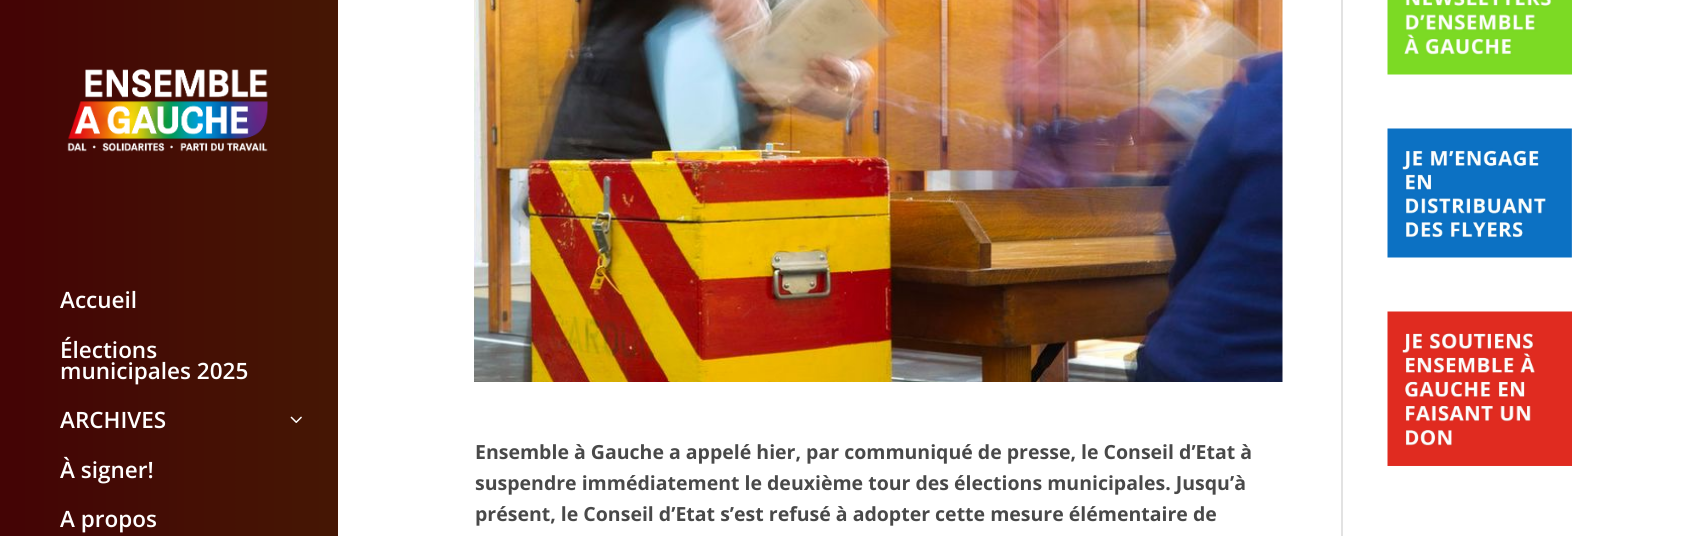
#include <cairo/cairo.h>
#include <math.h>
#include <stddef.h>


static void draw_image(cairo_t *cr, const char *path, double x, double y, double w, double h) {
  cairo_surface_t *image = cairo_image_surface_create_from_png(path);
  cairo_save(cr);
  cairo_set_source_surface(cr, image, x, y);
  cairo_rectangle(cr, x, y, w, h);
  cairo_fill(cr);
  cairo_restore(cr);
  cairo_surface_destroy(image);
}

static void draw(cairo_t *cr) {
  cairo_set_source_rgb(cr, 1, 1, 1);
  cairo_paint(cr);
  draw_image(cr, "images/1.png", 0, 0, 338, 536);
  cairo_set_source_rgba(cr, 0, 0, 0, 0.7);
  cairo_rectangle(cr, 0, 0, 338, 536);
  cairo_fill(cr);
  draw_image(cr, "images/2.png", 67, 69, 201, 83);
  draw_image(cr, "images/3.png", 290, 416, 12, 7);
  draw_image(cr, "images/4.png", 1387, 0, 185, 75);
  draw_image(cr, "images/5.png", 1387, 128, 185, 130);
  draw_image(cr, "images/6.png", 1387, 311, 185, 155);
  draw_image(cr, "images/7.png", 474, 0, 809, 382);
  cairo_set_source_rgb(cr, 226 / 255.0, 226 / 255.0, 226 / 255.0);
  cairo_rectangle(cr, 1341, 0, 2, 536);
  cairo_fill(cr);
  cairo_select_font_face(cr, "Open Sans SemiBold", CAIRO_FONT_SLANT_NORMAL, CAIRO_FONT_WEIGHT_NORMAL);
  cairo_set_font_size(cr, 22.5);
  cairo_set_source_rgb(cr, 1, 1, 1);
  cairo_move_to(cr, 60, 308);
  cairo_show_text(cr, "Accueil");
  cairo_move_to(cr, 60, 358);
  cairo_show_text(cr, "Élections");
  cairo_move_to(cr, 60, 379);
  cairo_show_text(cr, "municipales 2025");
  cairo_move_to(cr, 60, 428);
  cairo_show_text(cr, "ARCHIVES");
  cairo_move_to(cr, 60, 478);
  cairo_show_text(cr, "À signer!");
  cairo_move_to(cr, 60, 527);
  cairo_show_text(cr, "A propos");
  cairo_select_font_face(cr, "Open Sans", CAIRO_FONT_SLANT_NORMAL, CAIRO_FONT_WEIGHT_BOLD);
  cairo_set_font_size(cr, 19.5);
  cairo_set_source_rgb(cr, 73 / 255.0, 73 / 255.0, 73 / 255.0);
  cairo_move_to(cr, 475, 459);
  cairo_show_text(cr, "Ensemble à Gauche a appelé hier, par communiqué de presse, le Conseil d’Etat à");
  cairo_move_to(cr, 475, 490);
  cairo_show_text(cr, "suspendre immédiatement le deuxième tour des élections municipales. Jusqu’à");
  cairo_move_to(cr, 475, 521);
  cairo_show_text(cr, "présent, le Conseil d’Etat s’est refusé à adopter cette mesure élémentaire de");
}

int main(void) {
  cairo_surface_t *surface = cairo_image_surface_create(CAIRO_FORMAT_RGB24, 1708, 536);
  cairo_t *cr = cairo_create(surface);
  cairo_font_options_t *options = cairo_font_options_create();
  cairo_font_options_set_hint_metrics(options, CAIRO_HINT_METRICS_OFF);
  cairo_font_options_set_hint_style(options, CAIRO_HINT_STYLE_NONE);
  cairo_set_font_options(cr, options);
  cairo_set_miter_limit(cr, 4);
  draw(cr);
  cairo_surface_write_to_png(surface, "out.png");
  cairo_font_options_destroy(options);
  cairo_destroy(cr);
  cairo_surface_destroy(surface);
  return 0;
}
